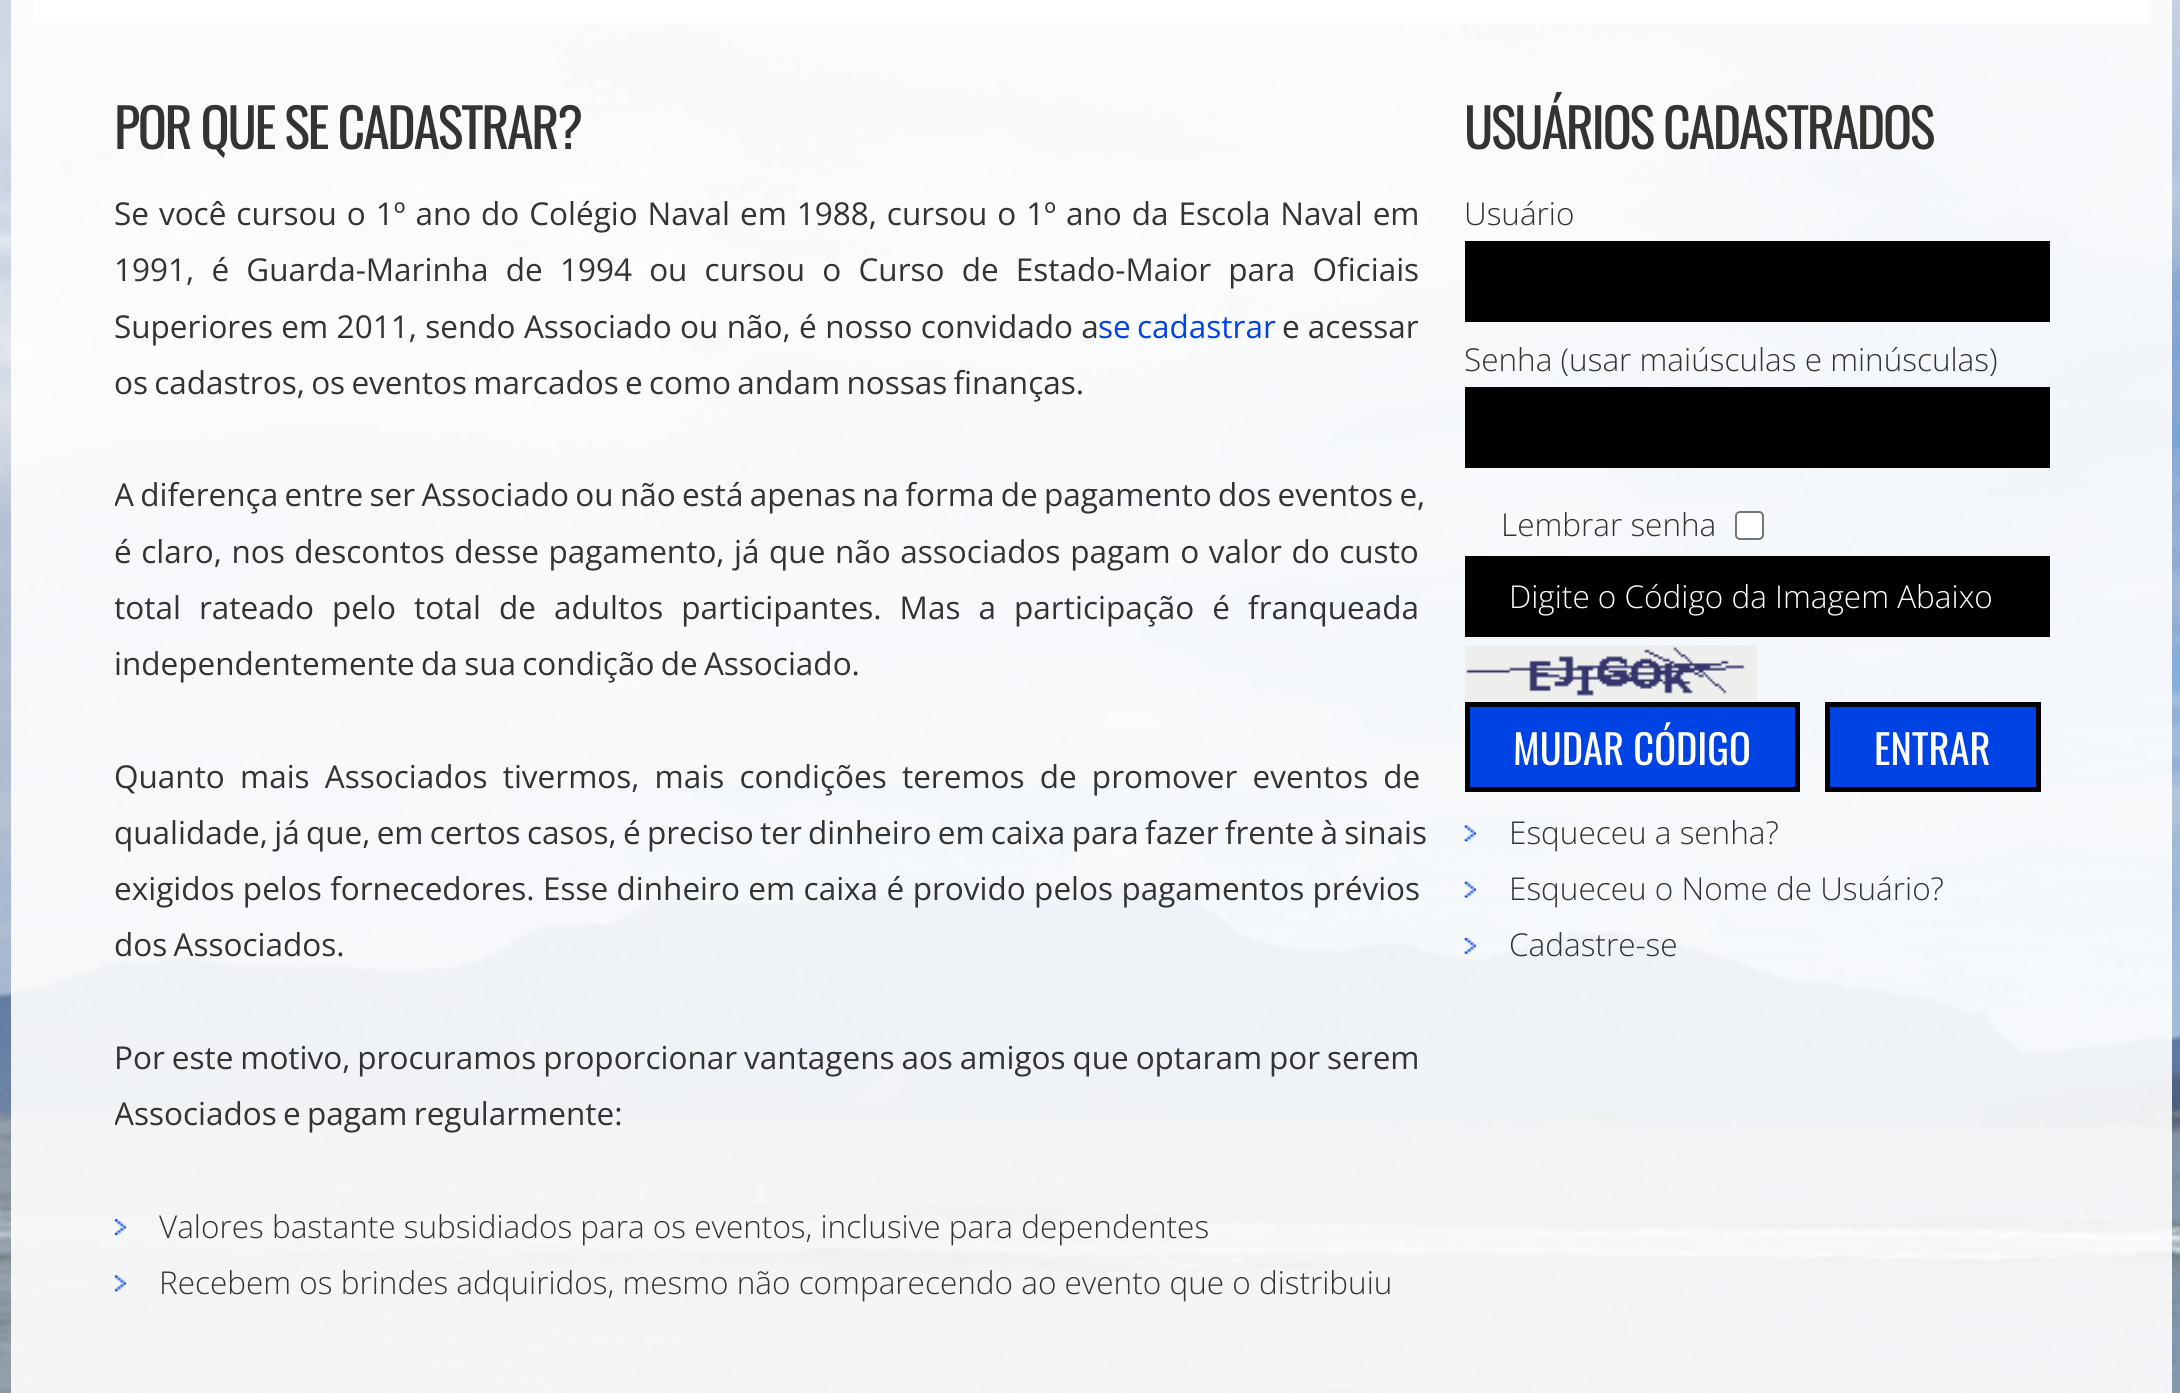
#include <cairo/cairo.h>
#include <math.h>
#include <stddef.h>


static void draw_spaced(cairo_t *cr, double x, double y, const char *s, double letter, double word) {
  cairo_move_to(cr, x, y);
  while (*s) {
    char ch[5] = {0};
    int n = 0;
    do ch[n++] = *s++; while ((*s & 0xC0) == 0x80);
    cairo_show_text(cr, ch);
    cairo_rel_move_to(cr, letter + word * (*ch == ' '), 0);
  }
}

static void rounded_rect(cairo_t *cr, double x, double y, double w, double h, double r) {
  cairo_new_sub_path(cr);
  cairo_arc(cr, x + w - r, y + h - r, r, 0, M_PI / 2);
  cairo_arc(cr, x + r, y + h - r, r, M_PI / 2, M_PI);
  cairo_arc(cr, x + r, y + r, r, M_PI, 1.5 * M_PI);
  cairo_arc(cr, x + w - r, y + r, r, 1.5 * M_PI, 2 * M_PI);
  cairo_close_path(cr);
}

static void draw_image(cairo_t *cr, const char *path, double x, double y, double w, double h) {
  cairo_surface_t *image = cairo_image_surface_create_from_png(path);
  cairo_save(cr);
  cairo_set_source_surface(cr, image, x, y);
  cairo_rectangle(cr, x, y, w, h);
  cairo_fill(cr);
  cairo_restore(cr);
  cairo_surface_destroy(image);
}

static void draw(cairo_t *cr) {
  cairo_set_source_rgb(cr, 1, 1, 1);
  cairo_paint(cr);
  draw_image(cr, "images/1.png", 0, 0, 2180, 1393);
  cairo_set_source_rgb(cr, 1, 1, 1);
  cairo_rectangle(cr, 34, 0, 2115, 23);
  cairo_fill(cr);
  draw_image(cr, "images/2.png", 114, 1219, 12, 16);
  draw_image(cr, "images/3.png", 114, 1275, 12, 17);
  cairo_set_source_rgb(cr, 0, 0, 0);
  cairo_rectangle(cr, 1465, 241, 585, 81);
  cairo_fill(cr);
  cairo_rectangle(cr, 1465, 387, 585, 81);
  cairo_fill(cr);
  cairo_set_source_rgb(cr, 1, 1, 1);
  rounded_rect(cr, 1736, 512, 27, 27, 4);
  cairo_fill_preserve(cr);
  cairo_set_source_rgb(cr, 118 / 255.0, 118 / 255.0, 118 / 255.0);
  cairo_stroke(cr);
  cairo_set_source_rgb(cr, 0, 0, 0);
  cairo_rectangle(cr, 1465, 556, 585, 81);
  cairo_fill(cr);
  draw_image(cr, "images/4.png", 1465, 645, 293, 57);
  cairo_set_source_rgb(cr, 0, 67 / 255.0, 228 / 255.0);
  cairo_rectangle(cr, 1467.5, 704.5, 330, 85);
  cairo_fill_preserve(cr);
  cairo_set_source_rgb(cr, 0, 0, 0);
  cairo_set_line_width(cr, 5);
  cairo_stroke(cr);
  cairo_set_source_rgb(cr, 0, 67 / 255.0, 228 / 255.0);
  cairo_rectangle(cr, 1827.5, 704.5, 211, 85);
  cairo_fill_preserve(cr);
  cairo_set_source_rgb(cr, 0, 0, 0);
  cairo_stroke(cr);
  draw_image(cr, "images/5.png", 1464, 825, 12, 17);
  draw_image(cr, "images/6.png", 1464, 881, 12, 17);
  draw_image(cr, "images/7.png", 1464, 938, 12, 16);
  cairo_select_font_face(cr, "Oswald", CAIRO_FONT_SLANT_NORMAL, CAIRO_FONT_WEIGHT_NORMAL);
  cairo_set_font_size(cr, 54);
  cairo_set_source_rgb(cr, 51 / 255.0, 51 / 255.0, 51 / 255.0);
  draw_spaced(cr, 114, 149, "POR QUE SE CADASTRAR?", -2.25, 0);
  cairo_select_font_face(cr, "Open Sans", CAIRO_FONT_SLANT_NORMAL, CAIRO_FONT_WEIGHT_NORMAL);
  cairo_set_font_size(cr, 31.5);
  draw_spaced(cr, 114, 225, "Se você cursou o 1º ano do Colégio Naval em 1988, cursou o 1º ano da Escola Naval em", 0, 1.75);
  draw_spaced(cr, 114, 281, "1991, é Guarda-Marinha de 1994 ou cursou o Curso de Estado-Maior para Oficiais", 0, 9);
  draw_spaced(cr, 114, 338, "Superiores em 2011, sendo Associado ou não, é nosso convidado a", 0, 0.25);
  cairo_set_source_rgb(cr, 0, 67 / 255.0, 228 / 255.0);
  draw_spaced(cr, 1098, 338, "se cadastrar", 0, -1.9);
  cairo_set_source_rgb(cr, 51 / 255.0, 51 / 255.0, 51 / 255.0);
  cairo_move_to(cr, 1282, 338);
  cairo_show_text(cr, "e acessar");
  draw_spaced(cr, 114, 394, "os cadastros, os eventos marcados e como andam nossas finanças.", 0, -1.9);
  cairo_save(cr);
  cairo_rectangle(cr, 115, 90, 1953, 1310);
  cairo_clip(cr);
  draw_spaced(cr, 114, 506, "A diferença entre ser Associado ou não está apenas na forma de pagamento dos eventos e,", 0, -1.9);
  cairo_restore(cr);
  draw_spaced(cr, 114, 563, "é claro, nos descontos desse pagamento, já que não associados pagam o valor do custo", 0, 1.4);
  cairo_save(cr);
  cairo_rectangle(cr, 115, 90, 1953, 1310);
  cairo_clip(cr);
  draw_spaced(cr, 114, 619, "total rateado pelo total de adultos participantes. Mas a participação é franqueada", 0, 9.9);
  cairo_restore(cr);
  draw_spaced(cr, 114, 675, "independentemente da sua condição de Associado.", 0, -1.9);
  draw_spaced(cr, 114, 788, "Quanto mais Associados tivermos, mais condições teremos de promover eventos de", 0, 7);
  draw_spaced(cr, 114, 844, "qualidade, já que, em certos casos, é preciso ter dinheiro em caixa para fazer frente à sinais", 0, -1.9);
  draw_spaced(cr, 114, 900, "exigidos pelos fornecedores. Esse dinheiro em caixa é provido pelos pagamentos prévios", 0, 0.25);
  draw_spaced(cr, 114, 956, "dos Associados.", 0, -1.9);
  draw_spaced(cr, 114, 1069, "Por este motivo, procuramos proporcionar vantagens aos amigos que optaram por serem", 0, -1.25);
  cairo_save(cr);
  cairo_rectangle(cr, 115, 90, 1953, 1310);
  cairo_clip(cr);
  draw_spaced(cr, 114, 1125, "Associados e pagam regularmente:", 0, -1.9);
  cairo_restore(cr);
  cairo_select_font_face(cr, "Open Sans Light", CAIRO_FONT_SLANT_NORMAL, CAIRO_FONT_WEIGHT_NORMAL);
  cairo_move_to(cr, 159, 1238);
  cairo_show_text(cr, "Valores bastante subsidiados para os eventos, inclusive para dependentes");
  cairo_move_to(cr, 159, 1294);
  cairo_show_text(cr, "Recebem os brindes adquiridos, mesmo não comparecendo ao evento que o distribuiu");
  cairo_select_font_face(cr, "Oswald", CAIRO_FONT_SLANT_NORMAL, CAIRO_FONT_WEIGHT_NORMAL);
  cairo_set_font_size(cr, 54);
  draw_spaced(cr, 1464, 149, "USUÁRIOS CADASTRADOS", -2.25, 0);
  cairo_select_font_face(cr, "Open Sans Light", CAIRO_FONT_SLANT_NORMAL, CAIRO_FONT_WEIGHT_NORMAL);
  cairo_set_font_size(cr, 31.5);
  cairo_move_to(cr, 1464, 225);
  cairo_show_text(cr, "Usuário");
  cairo_move_to(cr, 1464, 371);
  cairo_show_text(cr, "Senha (usar maiúsculas e minúsculas)");
  cairo_move_to(cr, 1501, 536);
  cairo_show_text(cr, "Lembrar senha");
  cairo_set_source_rgb(cr, 1, 1, 1);
  cairo_move_to(cr, 1509, 608);
  cairo_show_text(cr, "Digite o Código da Imagem Abaixo");
  cairo_select_font_face(cr, "Oswald", CAIRO_FONT_SLANT_NORMAL, CAIRO_FONT_WEIGHT_NORMAL);
  cairo_set_font_size(cr, 40.5);
  cairo_move_to(cr, 1513, 765);
  cairo_show_text(cr, "MUDAR CÓDIGO");
  cairo_move_to(cr, 1874, 765);
  cairo_show_text(cr, "ENTRAR");
  cairo_select_font_face(cr, "Open Sans Light", CAIRO_FONT_SLANT_NORMAL, CAIRO_FONT_WEIGHT_NORMAL);
  cairo_set_font_size(cr, 31.5);
  cairo_set_source_rgb(cr, 51 / 255.0, 51 / 255.0, 51 / 255.0);
  cairo_move_to(cr, 1509, 844);
  cairo_show_text(cr, "Esqueceu a senha?");
  cairo_move_to(cr, 1509, 900);
  cairo_show_text(cr, "Esqueceu o Nome de Usuário?");
  cairo_move_to(cr, 1509, 956);
  cairo_show_text(cr, "Cadastre-se");
}

int main(void) {
  cairo_surface_t *surface = cairo_image_surface_create(CAIRO_FORMAT_RGB24, 2180, 1393);
  cairo_t *cr = cairo_create(surface);
  cairo_font_options_t *options = cairo_font_options_create();
  cairo_font_options_set_hint_metrics(options, CAIRO_HINT_METRICS_OFF);
  cairo_font_options_set_hint_style(options, CAIRO_HINT_STYLE_NONE);
  cairo_set_font_options(cr, options);
  cairo_set_miter_limit(cr, 4);
  draw(cr);
  cairo_surface_write_to_png(surface, "out.png");
  cairo_font_options_destroy(options);
  cairo_destroy(cr);
  cairo_surface_destroy(surface);
  return 0;
}
